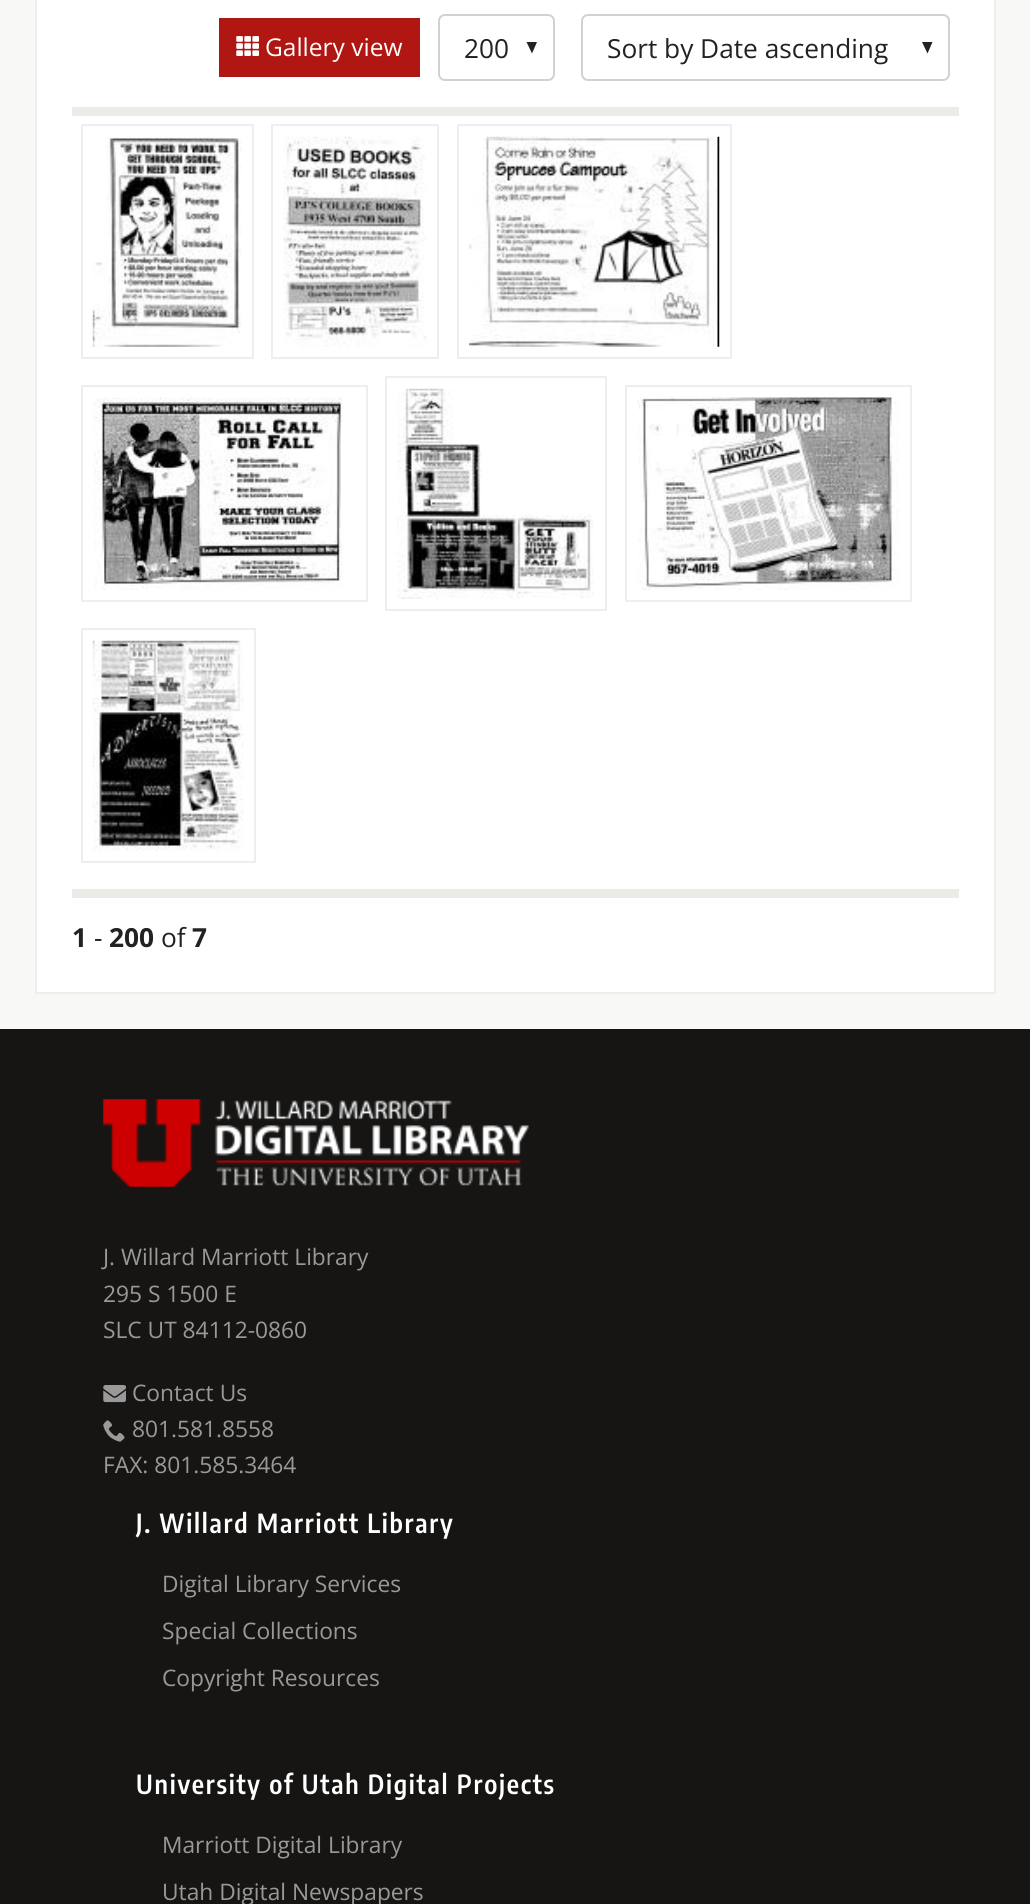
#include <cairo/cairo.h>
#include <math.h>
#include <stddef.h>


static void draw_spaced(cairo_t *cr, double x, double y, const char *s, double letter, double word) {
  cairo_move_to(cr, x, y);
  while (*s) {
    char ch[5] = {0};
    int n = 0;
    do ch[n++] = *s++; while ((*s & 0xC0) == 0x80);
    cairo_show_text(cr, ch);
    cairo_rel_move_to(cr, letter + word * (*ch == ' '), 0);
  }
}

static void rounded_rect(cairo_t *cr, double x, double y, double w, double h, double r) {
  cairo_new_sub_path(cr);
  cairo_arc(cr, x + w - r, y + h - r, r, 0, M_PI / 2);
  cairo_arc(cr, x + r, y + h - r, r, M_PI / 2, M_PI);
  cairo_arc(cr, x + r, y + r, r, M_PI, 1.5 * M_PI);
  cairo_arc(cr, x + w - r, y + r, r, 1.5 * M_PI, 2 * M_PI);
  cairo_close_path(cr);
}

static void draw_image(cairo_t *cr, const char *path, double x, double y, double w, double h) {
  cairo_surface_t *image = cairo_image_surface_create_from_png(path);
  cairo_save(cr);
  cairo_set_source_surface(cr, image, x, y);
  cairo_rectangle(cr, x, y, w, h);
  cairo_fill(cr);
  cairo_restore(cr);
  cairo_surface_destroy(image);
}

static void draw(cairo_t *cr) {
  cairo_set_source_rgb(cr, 248 / 255.0, 248 / 255.0, 247 / 255.0);
  cairo_paint(cr);
  cairo_set_source_rgb(cr, 1, 1, 1);
  cairo_rectangle(cr, 36, -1, 959, 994);
  cairo_fill_preserve(cr);
  cairo_set_source_rgb(cr, 238 / 255.0, 238 / 255.0, 238 / 255.0);
  cairo_stroke(cr);
  cairo_set_source_rgb(cr, 237 / 255.0, 235 / 255.0, 231 / 255.0);
  cairo_rectangle(cr, 72, 107, 887, 9);
  cairo_fill(cr);
  cairo_set_source_rgb(cr, 176 / 255.0, 22 / 255.0, 18 / 255.0);
  cairo_rectangle(cr, 219, 18, 201, 59);
  cairo_fill(cr);
  draw_image(cr, "images/1.png", 236, 36, 23, 20);
  cairo_set_source_rgb(cr, 34 / 255.0, 34 / 255.0, 34 / 255.0);
  cairo_new_path(cr);
  cairo_move_to(cr, 526.5, 42);
  cairo_line_to(cr, 532, 53.5);
  cairo_line_to(cr, 537, 42);
  cairo_fill(cr);
  rounded_rect(cr, 439, 15, 115, 65, 6);
  cairo_set_source_rgb(cr, 209 / 255.0, 209 / 255.0, 209 / 255.0);
  cairo_stroke(cr);
  cairo_set_source_rgb(cr, 34 / 255.0, 34 / 255.0, 34 / 255.0);
  cairo_new_path(cr);
  cairo_move_to(cr, 922, 42);
  cairo_line_to(cr, 927.5, 53.5);
  cairo_line_to(cr, 932.5, 42);
  cairo_fill(cr);
  rounded_rect(cr, 582, 15, 367, 65, 6);
  cairo_set_source_rgb(cr, 209 / 255.0, 209 / 255.0, 209 / 255.0);
  cairo_stroke(cr);
  cairo_set_source_rgb(cr, 237 / 255.0, 235 / 255.0, 231 / 255.0);
  cairo_rectangle(cr, 72, 889, 887, 9);
  cairo_fill(cr);
  cairo_rectangle(cr, 82, 125, 171, 233);
  cairo_set_source_rgb(cr, 238 / 255.0, 238 / 255.0, 238 / 255.0);
  cairo_stroke(cr);
  cairo_rectangle(cr, 272, 125, 166, 233);
  cairo_stroke(cr);
  cairo_rectangle(cr, 458, 125, 273, 233);
  cairo_stroke(cr);
  draw_image(cr, "images/2.png", 92, 137, 150, 210);
  draw_image(cr, "images/3.png", 283, 136, 144, 211);
  draw_image(cr, "images/4.png", 469, 136, 251, 211);
  cairo_rectangle(cr, 82, 386, 285, 215);
  cairo_stroke(cr);
  cairo_rectangle(cr, 386, 377, 220, 233);
  cairo_stroke(cr);
  cairo_rectangle(cr, 626, 386, 285, 215);
  cairo_stroke(cr);
  draw_image(cr, "images/5.png", 93, 397, 250, 193);
  draw_image(cr, "images/6.png", 397, 388, 197, 211);
  draw_image(cr, "images/7.png", 637, 397, 263, 193);
  cairo_rectangle(cr, 82, 629, 173, 233);
  cairo_stroke(cr);
  draw_image(cr, "images/8.png", 92, 640, 152, 211);
  cairo_set_source_rgb(cr, 22 / 255.0, 21 / 255.0, 20 / 255.0);
  cairo_rectangle(cr, 0, 1029, 1030, 875);
  cairo_fill(cr);
  draw_image(cr, "images/9.png", 103, 1099, 426, 88);
  draw_image(cr, "images/10.png", 103, 1385, 23, 18);
  draw_image(cr, "images/11.png", 103, 1420, 22, 22);
  cairo_select_font_face(cr, "Open Sans", CAIRO_FONT_SLANT_NORMAL, CAIRO_FONT_WEIGHT_NORMAL);
  cairo_set_font_size(cr, 24.5);
  cairo_set_source_rgb(cr, 1, 1, 1);
  cairo_move_to(cr, 265, 56);
  cairo_show_text(cr, "Gallery view");
  cairo_set_font_size(cr, 26.25);
  cairo_set_source_rgb(cr, 34 / 255.0, 34 / 255.0, 34 / 255.0);
  cairo_move_to(cr, 464, 58);
  cairo_show_text(cr, "200");
  cairo_move_to(cr, 607, 58);
  cairo_show_text(cr, "Sort by Date ascending");
  cairo_select_font_face(cr, "Open Sans", CAIRO_FONT_SLANT_NORMAL, CAIRO_FONT_WEIGHT_BOLD);
  cairo_move_to(cr, 72, 947);
  cairo_show_text(cr, "1");
  cairo_select_font_face(cr, "Open Sans", CAIRO_FONT_SLANT_NORMAL, CAIRO_FONT_WEIGHT_NORMAL);
  cairo_move_to(cr, 94, 947);
  cairo_show_text(cr, "-");
  cairo_select_font_face(cr, "Open Sans", CAIRO_FONT_SLANT_NORMAL, CAIRO_FONT_WEIGHT_BOLD);
  cairo_move_to(cr, 109, 947);
  cairo_show_text(cr, "200");
  cairo_select_font_face(cr, "Open Sans", CAIRO_FONT_SLANT_NORMAL, CAIRO_FONT_WEIGHT_NORMAL);
  cairo_move_to(cr, 161, 947);
  cairo_show_text(cr, "of");
  cairo_select_font_face(cr, "Open Sans", CAIRO_FONT_SLANT_NORMAL, CAIRO_FONT_WEIGHT_BOLD);
  cairo_move_to(cr, 192, 947);
  cairo_show_text(cr, "7");
  cairo_select_font_face(cr, "Open Sans", CAIRO_FONT_SLANT_NORMAL, CAIRO_FONT_WEIGHT_NORMAL);
  cairo_set_font_size(cr, 22.75);
  cairo_set_source_rgb(cr, 153 / 255.0, 153 / 255.0, 153 / 255.0);
  cairo_move_to(cr, 103, 1265);
  cairo_show_text(cr, "J. Willard Marriott Library");
  cairo_move_to(cr, 103, 1302);
  cairo_show_text(cr, "295 S 1500 E");
  cairo_move_to(cr, 103, 1338);
  cairo_show_text(cr, "SLC UT 84112-0860");
  cairo_move_to(cr, 132, 1401);
  cairo_show_text(cr, "Contact Us");
  cairo_move_to(cr, 132, 1437);
  cairo_show_text(cr, "801.581.8558");
  cairo_move_to(cr, 103, 1473);
  cairo_show_text(cr, "FAX: 801.585.3464");
  cairo_select_font_face(cr, "Encode Sans Condensed SemiBold", CAIRO_FONT_SLANT_NORMAL, CAIRO_FONT_WEIGHT_NORMAL);
  cairo_set_font_size(cr, 26.25);
  cairo_set_source_rgb(cr, 1, 1, 1);
  draw_spaced(cr, 136, 1533, "J. Willard Marriott Library", 1.75, 0);
  cairo_select_font_face(cr, "Open Sans", CAIRO_FONT_SLANT_NORMAL, CAIRO_FONT_WEIGHT_NORMAL);
  cairo_set_font_size(cr, 22.75);
  cairo_set_source_rgb(cr, 153 / 255.0, 153 / 255.0, 153 / 255.0);
  cairo_move_to(cr, 162, 1592);
  cairo_show_text(cr, "Digital Library Services");
  cairo_move_to(cr, 162, 1639);
  cairo_show_text(cr, "Special Collections");
  cairo_move_to(cr, 162, 1686);
  cairo_show_text(cr, "Copyright Resources");
  cairo_select_font_face(cr, "Encode Sans Condensed SemiBold", CAIRO_FONT_SLANT_NORMAL, CAIRO_FONT_WEIGHT_NORMAL);
  cairo_set_font_size(cr, 26.25);
  cairo_set_source_rgb(cr, 1, 1, 1);
  draw_spaced(cr, 136, 1794, "University of Utah Digital Projects", 1.75, 0);
  cairo_select_font_face(cr, "Open Sans", CAIRO_FONT_SLANT_NORMAL, CAIRO_FONT_WEIGHT_NORMAL);
  cairo_set_font_size(cr, 22.75);
  cairo_set_source_rgb(cr, 153 / 255.0, 153 / 255.0, 153 / 255.0);
  cairo_move_to(cr, 162, 1853);
  cairo_show_text(cr, "Marriott Digital Library");
  cairo_move_to(cr, 162, 1900);
  cairo_show_text(cr, "Utah Digital Newspapers");
}

int main(void) {
  cairo_surface_t *surface = cairo_image_surface_create(CAIRO_FORMAT_RGB24, 1030, 1904);
  cairo_t *cr = cairo_create(surface);
  cairo_font_options_t *options = cairo_font_options_create();
  cairo_font_options_set_hint_metrics(options, CAIRO_HINT_METRICS_OFF);
  cairo_font_options_set_hint_style(options, CAIRO_HINT_STYLE_NONE);
  cairo_set_font_options(cr, options);
  cairo_set_miter_limit(cr, 4);
  draw(cr);
  cairo_surface_write_to_png(surface, "out.png");
  cairo_font_options_destroy(options);
  cairo_destroy(cr);
  cairo_surface_destroy(surface);
  return 0;
}
